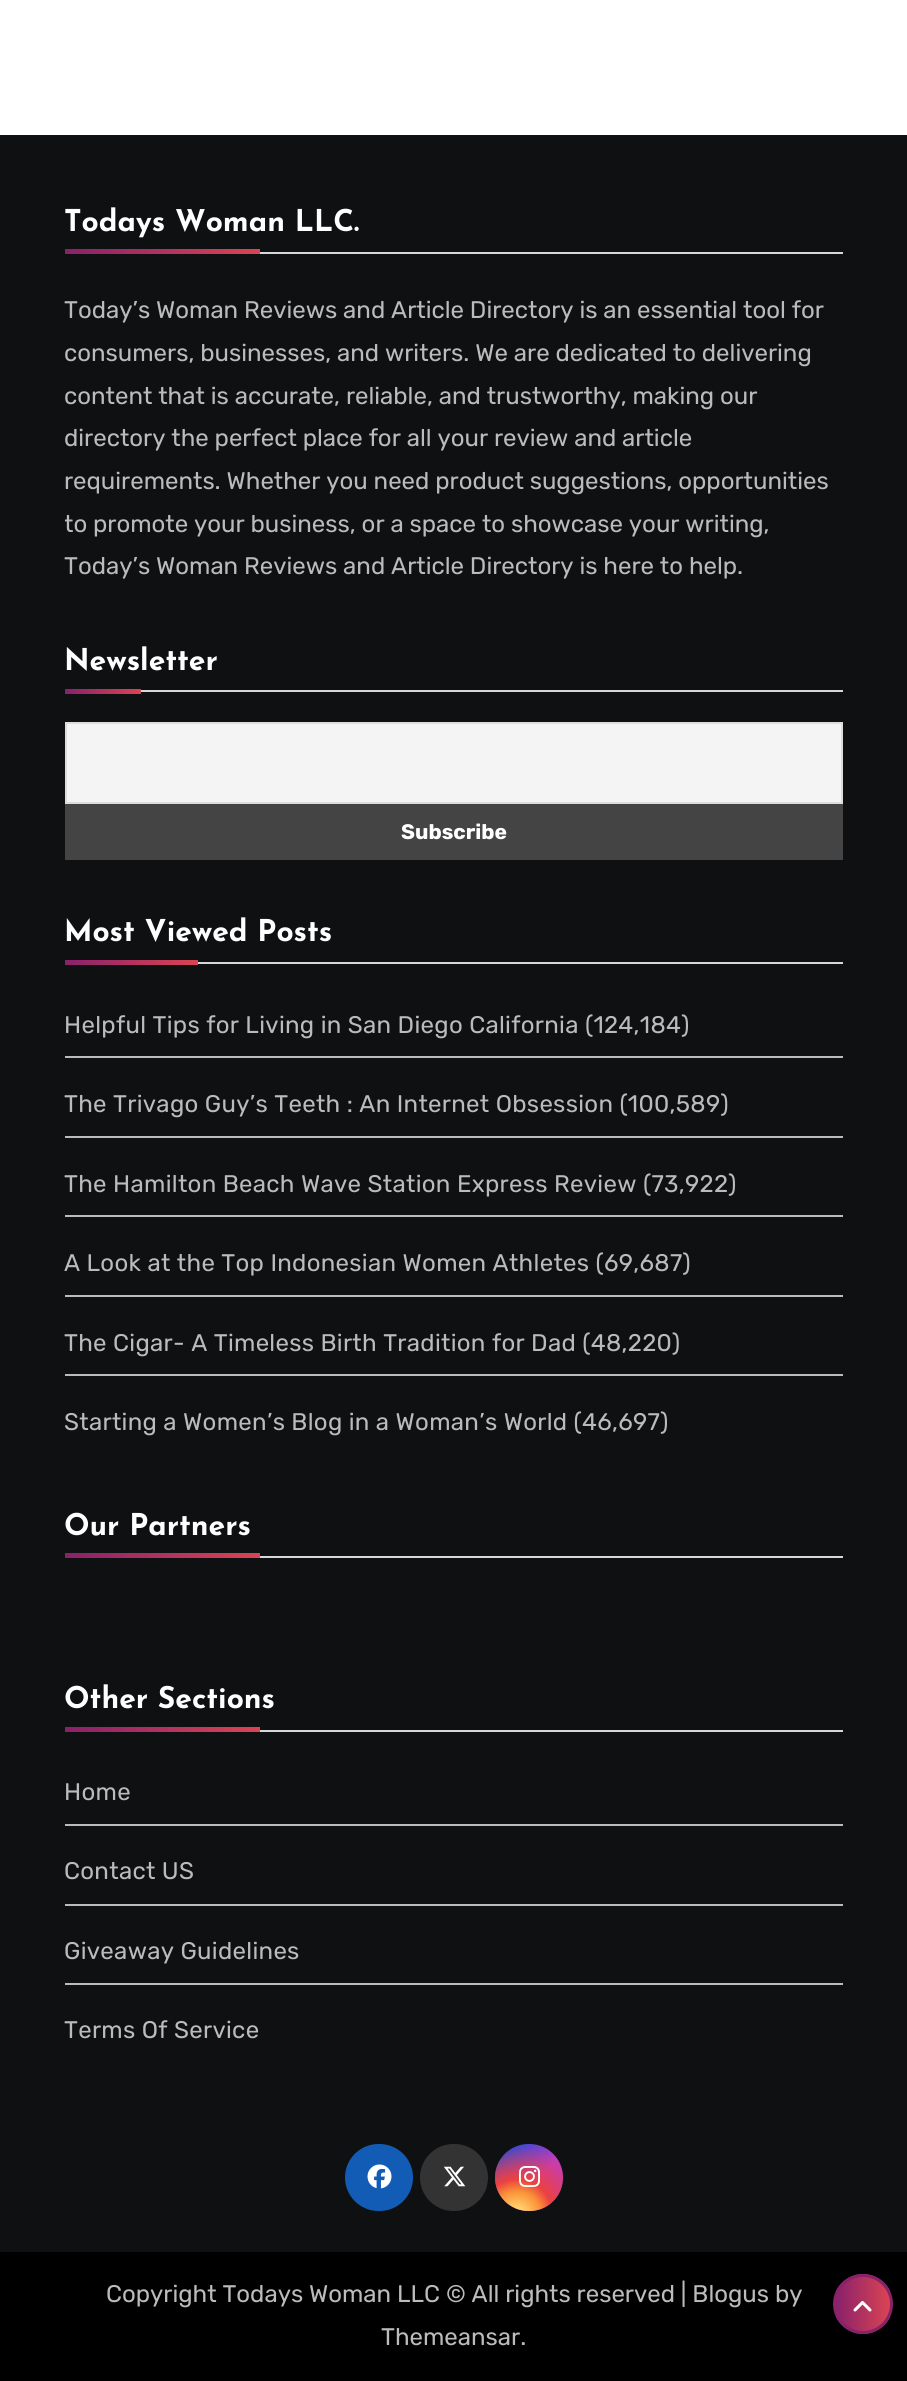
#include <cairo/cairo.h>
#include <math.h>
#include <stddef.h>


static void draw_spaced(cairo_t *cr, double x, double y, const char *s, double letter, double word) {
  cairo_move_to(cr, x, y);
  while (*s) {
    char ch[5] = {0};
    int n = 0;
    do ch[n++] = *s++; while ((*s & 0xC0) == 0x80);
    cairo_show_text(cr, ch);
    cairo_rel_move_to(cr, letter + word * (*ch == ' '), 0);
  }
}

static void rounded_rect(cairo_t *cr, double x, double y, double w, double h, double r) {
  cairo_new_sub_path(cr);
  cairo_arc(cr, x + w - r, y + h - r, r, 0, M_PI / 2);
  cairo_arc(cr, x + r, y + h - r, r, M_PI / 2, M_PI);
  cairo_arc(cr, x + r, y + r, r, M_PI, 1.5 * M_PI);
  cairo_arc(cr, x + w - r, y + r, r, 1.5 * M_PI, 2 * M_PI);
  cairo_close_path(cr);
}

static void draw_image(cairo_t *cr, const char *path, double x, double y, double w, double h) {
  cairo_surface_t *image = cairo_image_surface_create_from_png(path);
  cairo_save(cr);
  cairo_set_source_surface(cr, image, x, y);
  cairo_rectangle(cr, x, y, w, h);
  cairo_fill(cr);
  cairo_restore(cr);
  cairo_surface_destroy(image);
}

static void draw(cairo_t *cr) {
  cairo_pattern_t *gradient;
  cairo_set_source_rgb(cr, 1, 1, 1);
  cairo_paint(cr);
  cairo_set_source_rgb(cr, 15 / 255.0, 16 / 255.0, 18 / 255.0);
  cairo_rectangle(cr, 0, 135, 907, 2117);
  cairo_fill(cr);
  cairo_set_source_rgb(cr, 215 / 255.0, 215 / 255.0, 215 / 255.0);
  cairo_rectangle(cr, 260, 252, 583, 2);
  cairo_fill(cr);
  gradient = cairo_pattern_create_linear(65, 251, 260, 251);
  cairo_pattern_add_color_stop_rgba(gradient, 0, 137 / 255.0, 33 / 255.0, 107 / 255.0, 1);
  cairo_pattern_add_color_stop_rgba(gradient, 1, 218 / 255.0, 68 / 255.0, 83 / 255.0, 1);
  cairo_set_source(cr, gradient);
  cairo_pattern_destroy(gradient);
  cairo_rectangle(cr, 65, 249, 195, 5);
  cairo_fill(cr);
  cairo_set_source_rgb(cr, 215 / 255.0, 215 / 255.0, 215 / 255.0);
  cairo_rectangle(cr, 141, 690, 702, 2);
  cairo_fill(cr);
  gradient = cairo_pattern_create_linear(65, 691, 141, 691);
  cairo_pattern_add_color_stop_rgba(gradient, 0, 137 / 255.0, 33 / 255.0, 107 / 255.0, 1);
  cairo_pattern_add_color_stop_rgba(gradient, 1, 218 / 255.0, 68 / 255.0, 83 / 255.0, 1);
  cairo_set_source(cr, gradient);
  cairo_pattern_destroy(gradient);
  cairo_rectangle(cr, 65, 689, 76, 5);
  cairo_fill(cr);
  cairo_set_source_rgb(cr, 244 / 255.0, 244 / 255.0, 244 / 255.0);
  cairo_rectangle(cr, 66, 723, 776, 80);
  cairo_fill_preserve(cr);
  cairo_set_source_rgb(cr, 221 / 255.0, 221 / 255.0, 221 / 255.0);
  cairo_stroke(cr);
  cairo_set_source_rgb(cr, 68 / 255.0, 68 / 255.0, 68 / 255.0);
  cairo_rectangle(cr, 65, 804, 778, 56);
  cairo_fill(cr);
  cairo_set_source_rgb(cr, 215 / 255.0, 215 / 255.0, 215 / 255.0);
  cairo_rectangle(cr, 198, 962, 645, 2);
  cairo_fill(cr);
  gradient = cairo_pattern_create_linear(65, 962, 198, 962);
  cairo_pattern_add_color_stop_rgba(gradient, 0, 137 / 255.0, 33 / 255.0, 107 / 255.0, 1);
  cairo_pattern_add_color_stop_rgba(gradient, 1, 218 / 255.0, 68 / 255.0, 83 / 255.0, 1);
  cairo_set_source(cr, gradient);
  cairo_pattern_destroy(gradient);
  cairo_rectangle(cr, 65, 960, 133, 5);
  cairo_fill(cr);
  cairo_set_source_rgb(cr, 187 / 255.0, 187 / 255.0, 187 / 255.0);
  cairo_rectangle(cr, 65, 1056, 778, 2);
  cairo_fill(cr);
  cairo_rectangle(cr, 65, 1136, 778, 2);
  cairo_fill(cr);
  cairo_rectangle(cr, 65, 1215, 778, 2);
  cairo_fill(cr);
  cairo_rectangle(cr, 65, 1295, 778, 2);
  cairo_fill(cr);
  cairo_rectangle(cr, 65, 1374, 778, 2);
  cairo_fill(cr);
  cairo_set_source_rgb(cr, 215 / 255.0, 215 / 255.0, 215 / 255.0);
  cairo_rectangle(cr, 260, 1556, 583, 2);
  cairo_fill(cr);
  gradient = cairo_pattern_create_linear(65, 1555, 260, 1555);
  cairo_pattern_add_color_stop_rgba(gradient, 0, 137 / 255.0, 33 / 255.0, 107 / 255.0, 1);
  cairo_pattern_add_color_stop_rgba(gradient, 1, 218 / 255.0, 68 / 255.0, 83 / 255.0, 1);
  cairo_set_source(cr, gradient);
  cairo_pattern_destroy(gradient);
  cairo_rectangle(cr, 65, 1553, 195, 5);
  cairo_fill(cr);
  cairo_set_source_rgb(cr, 215 / 255.0, 215 / 255.0, 215 / 255.0);
  cairo_rectangle(cr, 260, 1730, 583, 2);
  cairo_fill(cr);
  gradient = cairo_pattern_create_linear(65, 1729, 260, 1729);
  cairo_pattern_add_color_stop_rgba(gradient, 0, 137 / 255.0, 33 / 255.0, 107 / 255.0, 1);
  cairo_pattern_add_color_stop_rgba(gradient, 1, 218 / 255.0, 68 / 255.0, 83 / 255.0, 1);
  cairo_set_source(cr, gradient);
  cairo_pattern_destroy(gradient);
  cairo_rectangle(cr, 65, 1727, 195, 5);
  cairo_fill(cr);
  cairo_set_source_rgb(cr, 187 / 255.0, 187 / 255.0, 187 / 255.0);
  cairo_rectangle(cr, 65, 1824, 778, 2);
  cairo_fill(cr);
  cairo_rectangle(cr, 65, 1904, 778, 2);
  cairo_fill(cr);
  cairo_rectangle(cr, 65, 1983, 778, 2);
  cairo_fill(cr);
  cairo_set_source_rgb(cr, 19 / 255.0, 92 / 255.0, 182 / 255.0);
  rounded_rect(cr, 345, 2144, 68, 67, 33.5);
  cairo_fill(cr);
  draw_image(cr, "images/1.png", 367, 2164, 25, 25);
  cairo_set_source_rgb(cr, 51 / 255.0, 51 / 255.0, 51 / 255.0);
  rounded_rect(cr, 420, 2144, 68, 67, 33.5);
  cairo_fill(cr);
  draw_image(cr, "images/2.png", 443, 2166, 23, 21);
  gradient = cairo_pattern_create_linear(495, 2144, 563, 2211);
  cairo_pattern_add_color_stop_rgba(gradient, 0.12, 35 / 255.0, 75 / 255.0, 215 / 255.0, 1);
  cairo_pattern_add_color_stop_rgba(gradient, 0.58, 195 / 255.0, 60 / 255.0, 190 / 255.0, 1);
  cairo_set_source(cr, gradient);
  cairo_pattern_destroy(gradient);
  rounded_rect(cr, 495, 2144, 68, 67, 33.5);
  cairo_fill(cr);
  gradient = cairo_pattern_create_radial(517, 2215, 0, 517, 2215, 85);
  cairo_pattern_add_color_stop_rgba(gradient, 0, 1, 225 / 255.0, 125 / 255.0, 1);
  cairo_pattern_add_color_stop_rgba(gradient, 0.1, 1, 205 / 255.0, 105 / 255.0, 1);
  cairo_pattern_add_color_stop_rgba(gradient, 0.28, 250 / 255.0, 145 / 255.0, 55 / 255.0, 1);
  cairo_pattern_add_color_stop_rgba(gradient, 0.42, 235 / 255.0, 65 / 255.0, 65 / 255.0, 1);
  cairo_pattern_add_color_stop_rgba(gradient, 0.82, 235 / 255.0, 65 / 255.0, 65 / 255.0, 0);
  cairo_set_source(cr, gradient);
  cairo_pattern_destroy(gradient);
  rounded_rect(cr, 495, 2144, 68, 67, 33.5);
  cairo_fill(cr);
  draw_image(cr, "images/3.png", 519, 2166, 21, 21);
  cairo_set_source_rgb(cr, 0, 0, 0);
  cairo_rectangle(cr, 0, 2252, 907, 129);
  cairo_fill(cr);
  cairo_save(cr);
  rounded_rect(cr, 833, 2274, 60, 60, 30);
  cairo_clip(cr);
  gradient = cairo_pattern_create_linear(836, 2304, 890, 2304);
  cairo_pattern_add_color_stop_rgba(gradient, 0, 137 / 255.0, 33 / 255.0, 107 / 255.0, 1);
  cairo_pattern_add_color_stop_rgba(gradient, 1, 218 / 255.0, 68 / 255.0, 83 / 255.0, 1);
  cairo_set_source(cr, gradient);
  cairo_pattern_destroy(gradient);
  cairo_rectangle(cr, 836, 2274, 54, 60);
  cairo_fill(cr);
  cairo_restore(cr);
  cairo_arc(cr, 863, 2304, 28.5, 0, 2 * M_PI);
  cairo_set_source_rgb(cr, 137 / 255.0, 33 / 255.0, 107 / 255.0);
  cairo_set_line_width(cr, 3);
  cairo_stroke(cr);
  draw_image(cr, "images/4.png", 853, 2301, 19, 11);
  cairo_select_font_face(cr, "Josefin Sans", CAIRO_FONT_SLANT_NORMAL, CAIRO_FONT_WEIGHT_BOLD);
  cairo_set_font_size(cr, 30);
  cairo_set_source_rgb(cr, 1, 1, 1);
  cairo_move_to(cr, 64, 231);
  cairo_show_text(cr, "Todays Woman LLC.");
  cairo_select_font_face(cr, "Rubik Light", CAIRO_FONT_SLANT_NORMAL, CAIRO_FONT_WEIGHT_NORMAL);
  cairo_set_font_size(cr, 24);
  cairo_set_source_rgb(cr, 187 / 255.0, 187 / 255.0, 187 / 255.0);
  cairo_move_to(cr, 64, 318);
  cairo_show_text(cr, "Today’s Woman Reviews and Article Directory is an essential tool for");
  cairo_move_to(cr, 64, 361);
  cairo_show_text(cr, "consumers, businesses, and writers. We are dedicated to delivering");
  cairo_move_to(cr, 64, 404);
  cairo_show_text(cr, "content that is accurate, reliable, and trustworthy, making our");
  cairo_move_to(cr, 64, 446);
  cairo_show_text(cr, "directory the perfect place for all your review and article");
  cairo_move_to(cr, 64, 489);
  cairo_show_text(cr, "requirements. Whether you need product suggestions, opportunities");
  cairo_save(cr);
  cairo_rectangle(cr, 65, 195, 778, 393);
  cairo_clip(cr);
  cairo_move_to(cr, 64, 532);
  cairo_show_text(cr, "to promote your business, or a space to showcase your writing,");
  cairo_restore(cr);
  cairo_move_to(cr, 64, 574);
  cairo_show_text(cr, "Today’s Woman Reviews and Article Directory is here to help.");
  cairo_select_font_face(cr, "Josefin Sans", CAIRO_FONT_SLANT_NORMAL, CAIRO_FONT_WEIGHT_BOLD);
  cairo_set_font_size(cr, 30);
  cairo_set_source_rgb(cr, 1, 1, 1);
  cairo_move_to(cr, 64, 670);
  cairo_show_text(cr, "Newsletter");
  cairo_select_font_face(cr, "Rubik", CAIRO_FONT_SLANT_NORMAL, CAIRO_FONT_WEIGHT_BOLD);
  cairo_set_font_size(cr, 21);
  cairo_move_to(cr, 401, 839);
  cairo_show_text(cr, "Subscribe");
  cairo_select_font_face(cr, "Josefin Sans", CAIRO_FONT_SLANT_NORMAL, CAIRO_FONT_WEIGHT_BOLD);
  cairo_set_font_size(cr, 30);
  cairo_move_to(cr, 64, 941);
  cairo_show_text(cr, "Most Viewed Posts");
  cairo_select_font_face(cr, "Rubik Light", CAIRO_FONT_SLANT_NORMAL, CAIRO_FONT_WEIGHT_NORMAL);
  cairo_set_font_size(cr, 24);
  cairo_set_source_rgb(cr, 187 / 255.0, 187 / 255.0, 187 / 255.0);
  draw_spaced(cr, 64, 1033, "Helpful Tips for Living in San Diego California (124,184)", 0.3, 0);
  draw_spaced(cr, 64, 1112, "The Trivago Guy’s Teeth : An Internet Obsession (100,589)", 0.3, 0);
  draw_spaced(cr, 64, 1192, "The Hamilton Beach Wave Station Express Review (73,922)", 0.3, 0);
  draw_spaced(cr, 64, 1271, "A Look at the Top Indonesian Women Athletes (69,687)", 0.3, 0);
  draw_spaced(cr, 64, 1351, "The Cigar- A Timeless Birth Tradition for Dad (48,220)", 0.3, 0);
  draw_spaced(cr, 64, 1430, "Starting a Women’s Blog in a Woman’s World (46,697)", 0.3, 0);
  cairo_select_font_face(cr, "Josefin Sans", CAIRO_FONT_SLANT_NORMAL, CAIRO_FONT_WEIGHT_BOLD);
  cairo_set_font_size(cr, 30);
  cairo_set_source_rgb(cr, 1, 1, 1);
  cairo_move_to(cr, 64, 1535);
  cairo_show_text(cr, "Our Partners");
  cairo_move_to(cr, 64, 1708);
  cairo_show_text(cr, "Other Sections");
  cairo_select_font_face(cr, "Rubik Light", CAIRO_FONT_SLANT_NORMAL, CAIRO_FONT_WEIGHT_NORMAL);
  cairo_set_font_size(cr, 24);
  cairo_set_source_rgb(cr, 187 / 255.0, 187 / 255.0, 187 / 255.0);
  draw_spaced(cr, 64, 1800, "Home", 0.3, 0);
  draw_spaced(cr, 64, 1879, "Contact US", 0.3, 0);
  draw_spaced(cr, 64, 1959, "Giveaway Guidelines", 0.3, 0);
  draw_spaced(cr, 64, 2038, "Terms Of Service", 0.3, 0);
  cairo_move_to(cr, 106, 2302);
  cairo_show_text(cr, "Copyright Todays Woman LLC © All rights reserved | Blogus by");
  cairo_move_to(cr, 381, 2345);
  cairo_show_text(cr, "Themeansar.");
}

int main(void) {
  cairo_surface_t *surface = cairo_image_surface_create(CAIRO_FORMAT_RGB24, 907, 2381);
  cairo_t *cr = cairo_create(surface);
  cairo_font_options_t *options = cairo_font_options_create();
  cairo_font_options_set_hint_metrics(options, CAIRO_HINT_METRICS_OFF);
  cairo_font_options_set_hint_style(options, CAIRO_HINT_STYLE_NONE);
  cairo_set_font_options(cr, options);
  cairo_set_miter_limit(cr, 4);
  draw(cr);
  cairo_surface_write_to_png(surface, "out.png");
  cairo_font_options_destroy(options);
  cairo_destroy(cr);
  cairo_surface_destroy(surface);
  return 0;
}
